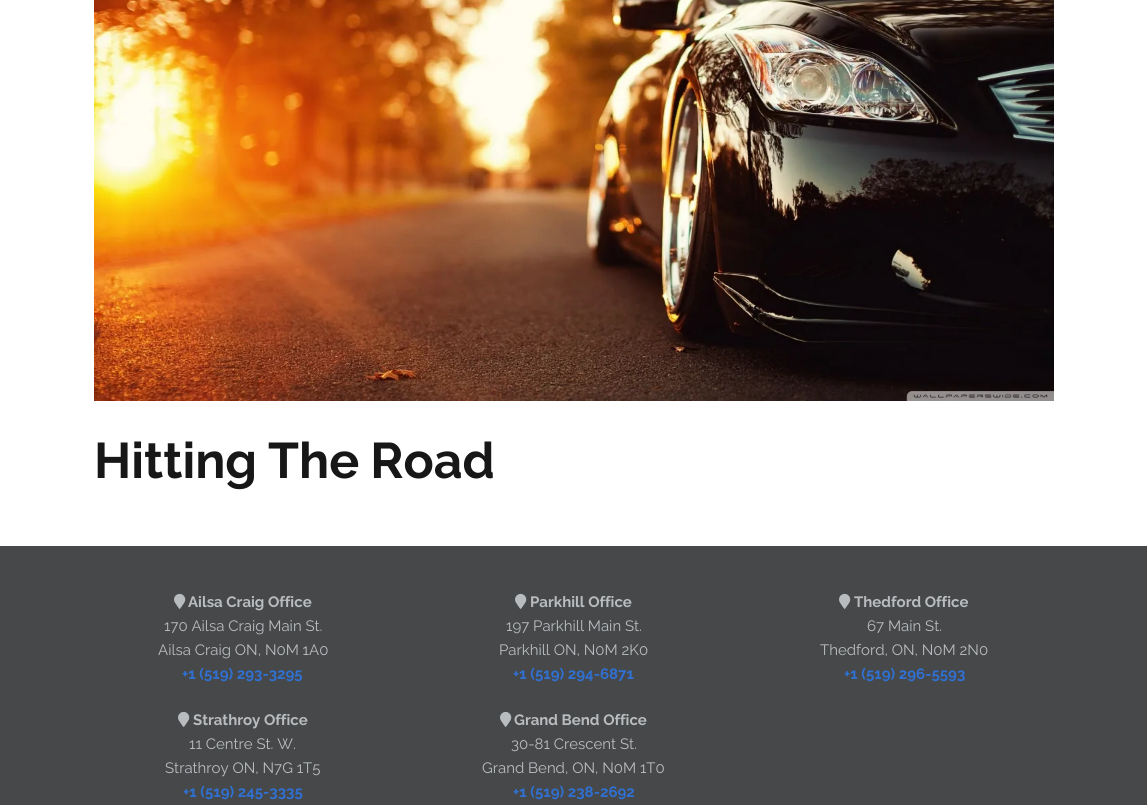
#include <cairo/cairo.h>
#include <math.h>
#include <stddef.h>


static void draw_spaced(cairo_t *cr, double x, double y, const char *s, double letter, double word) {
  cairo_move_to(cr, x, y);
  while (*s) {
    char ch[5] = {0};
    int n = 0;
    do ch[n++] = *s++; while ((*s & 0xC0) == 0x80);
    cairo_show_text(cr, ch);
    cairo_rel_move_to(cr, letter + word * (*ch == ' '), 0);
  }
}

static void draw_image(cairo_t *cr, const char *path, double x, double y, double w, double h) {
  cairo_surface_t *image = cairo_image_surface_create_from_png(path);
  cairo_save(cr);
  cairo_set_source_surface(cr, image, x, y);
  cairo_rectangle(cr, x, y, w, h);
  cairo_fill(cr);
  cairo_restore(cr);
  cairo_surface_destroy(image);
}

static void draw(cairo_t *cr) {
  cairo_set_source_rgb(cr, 1, 1, 1);
  cairo_paint(cr);
  draw_image(cr, "images/1.png", 94, 0, 960, 401);
  cairo_set_source_rgb(cr, 70 / 255.0, 72 / 255.0, 73 / 255.0);
  cairo_rectangle(cr, 0, 546, 1147, 259);
  cairo_fill(cr);
  draw_image(cr, "images/2.png", 174, 593, 12, 16);
  draw_image(cr, "images/2.png", 178, 711, 12, 16);
  draw_image(cr, "images/2.png", 515, 593, 12, 16);
  draw_image(cr, "images/2.png", 500, 711, 12, 16);
  draw_image(cr, "images/2.png", 839, 593, 12, 16);
  cairo_select_font_face(cr, "Raleway", CAIRO_FONT_SLANT_NORMAL, CAIRO_FONT_WEIGHT_BOLD);
  cairo_set_font_size(cr, 50);
  cairo_set_source_rgb(cr, 23 / 255.0, 23 / 255.0, 23 / 255.0);
  draw_spaced(cr, 94, 478, "Hitting The Road", 0, -1);
  cairo_set_font_size(cr, 15);
  cairo_set_source_rgb(cr, 185 / 255.0, 188 / 255.0, 191 / 255.0);
  cairo_move_to(cr, 188, 607);
  cairo_show_text(cr, "Ailsa Craig Office");
  cairo_select_font_face(cr, "Raleway", CAIRO_FONT_SLANT_NORMAL, CAIRO_FONT_WEIGHT_NORMAL);
  cairo_move_to(cr, 164, 631);
  cairo_show_text(cr, "170 Ailsa Craig Main St.");
  cairo_move_to(cr, 158, 655);
  cairo_show_text(cr, "Ailsa Craig ON, N0M 1A0");
  cairo_select_font_face(cr, "Raleway", CAIRO_FONT_SLANT_NORMAL, CAIRO_FONT_WEIGHT_BOLD);
  cairo_set_source_rgb(cr, 48 / 255.0, 112 / 255.0, 209 / 255.0);
  cairo_move_to(cr, 182, 679);
  cairo_show_text(cr, "+1 (519) 293-3295");
  cairo_set_source_rgb(cr, 185 / 255.0, 188 / 255.0, 191 / 255.0);
  cairo_move_to(cr, 193, 725);
  cairo_show_text(cr, "Strathroy Office");
  cairo_select_font_face(cr, "Raleway", CAIRO_FONT_SLANT_NORMAL, CAIRO_FONT_WEIGHT_NORMAL);
  cairo_move_to(cr, 189, 749);
  cairo_show_text(cr, "11 Centre St. W.");
  cairo_move_to(cr, 165, 773);
  cairo_show_text(cr, "Strathroy ON, N7G 1T5");
  cairo_select_font_face(cr, "Raleway", CAIRO_FONT_SLANT_NORMAL, CAIRO_FONT_WEIGHT_BOLD);
  cairo_set_source_rgb(cr, 48 / 255.0, 112 / 255.0, 209 / 255.0);
  cairo_move_to(cr, 183, 797);
  cairo_show_text(cr, "+1 (519) 245-3335");
  cairo_set_source_rgb(cr, 185 / 255.0, 188 / 255.0, 191 / 255.0);
  cairo_move_to(cr, 530, 607);
  cairo_show_text(cr, "Parkhill Office");
  cairo_select_font_face(cr, "Raleway", CAIRO_FONT_SLANT_NORMAL, CAIRO_FONT_WEIGHT_NORMAL);
  cairo_move_to(cr, 506, 631);
  cairo_show_text(cr, "197 Parkhill Main St.");
  cairo_move_to(cr, 499, 655);
  cairo_show_text(cr, "Parkhill ON, N0M 2K0");
  cairo_select_font_face(cr, "Raleway", CAIRO_FONT_SLANT_NORMAL, CAIRO_FONT_WEIGHT_BOLD);
  cairo_set_source_rgb(cr, 48 / 255.0, 112 / 255.0, 209 / 255.0);
  cairo_move_to(cr, 513, 679);
  cairo_show_text(cr, "+1 (519) 294-6871");
  cairo_set_source_rgb(cr, 185 / 255.0, 188 / 255.0, 191 / 255.0);
  cairo_move_to(cr, 514, 725);
  cairo_show_text(cr, "Grand Bend Office");
  cairo_select_font_face(cr, "Raleway", CAIRO_FONT_SLANT_NORMAL, CAIRO_FONT_WEIGHT_NORMAL);
  cairo_move_to(cr, 511, 749);
  cairo_show_text(cr, "30-81 Crescent St.");
  cairo_move_to(cr, 482, 773);
  cairo_show_text(cr, "Grand Bend, ON, N0M 1T0");
  cairo_select_font_face(cr, "Raleway", CAIRO_FONT_SLANT_NORMAL, CAIRO_FONT_WEIGHT_BOLD);
  cairo_set_source_rgb(cr, 48 / 255.0, 112 / 255.0, 209 / 255.0);
  cairo_move_to(cr, 513, 797);
  cairo_show_text(cr, "+1 (519) 238-2692");
  cairo_set_source_rgb(cr, 185 / 255.0, 188 / 255.0, 191 / 255.0);
  cairo_move_to(cr, 854, 607);
  cairo_show_text(cr, "Thedford Office");
  cairo_select_font_face(cr, "Raleway", CAIRO_FONT_SLANT_NORMAL, CAIRO_FONT_WEIGHT_NORMAL);
  cairo_move_to(cr, 867, 631);
  cairo_show_text(cr, "67 Main St.");
  cairo_move_to(cr, 820, 655);
  cairo_show_text(cr, "Thedford, ON, N0M 2N0");
  cairo_select_font_face(cr, "Raleway", CAIRO_FONT_SLANT_NORMAL, CAIRO_FONT_WEIGHT_BOLD);
  cairo_set_source_rgb(cr, 48 / 255.0, 112 / 255.0, 209 / 255.0);
  cairo_move_to(cr, 844, 679);
  cairo_show_text(cr, "+1 (519) 296-5593");
}

int main(void) {
  cairo_surface_t *surface = cairo_image_surface_create(CAIRO_FORMAT_RGB24, 1147, 805);
  cairo_t *cr = cairo_create(surface);
  cairo_font_options_t *options = cairo_font_options_create();
  cairo_font_options_set_hint_metrics(options, CAIRO_HINT_METRICS_OFF);
  cairo_font_options_set_hint_style(options, CAIRO_HINT_STYLE_NONE);
  cairo_set_font_options(cr, options);
  cairo_set_miter_limit(cr, 4);
  draw(cr);
  cairo_surface_write_to_png(surface, "out.png");
  cairo_font_options_destroy(options);
  cairo_destroy(cr);
  cairo_surface_destroy(surface);
  return 0;
}
